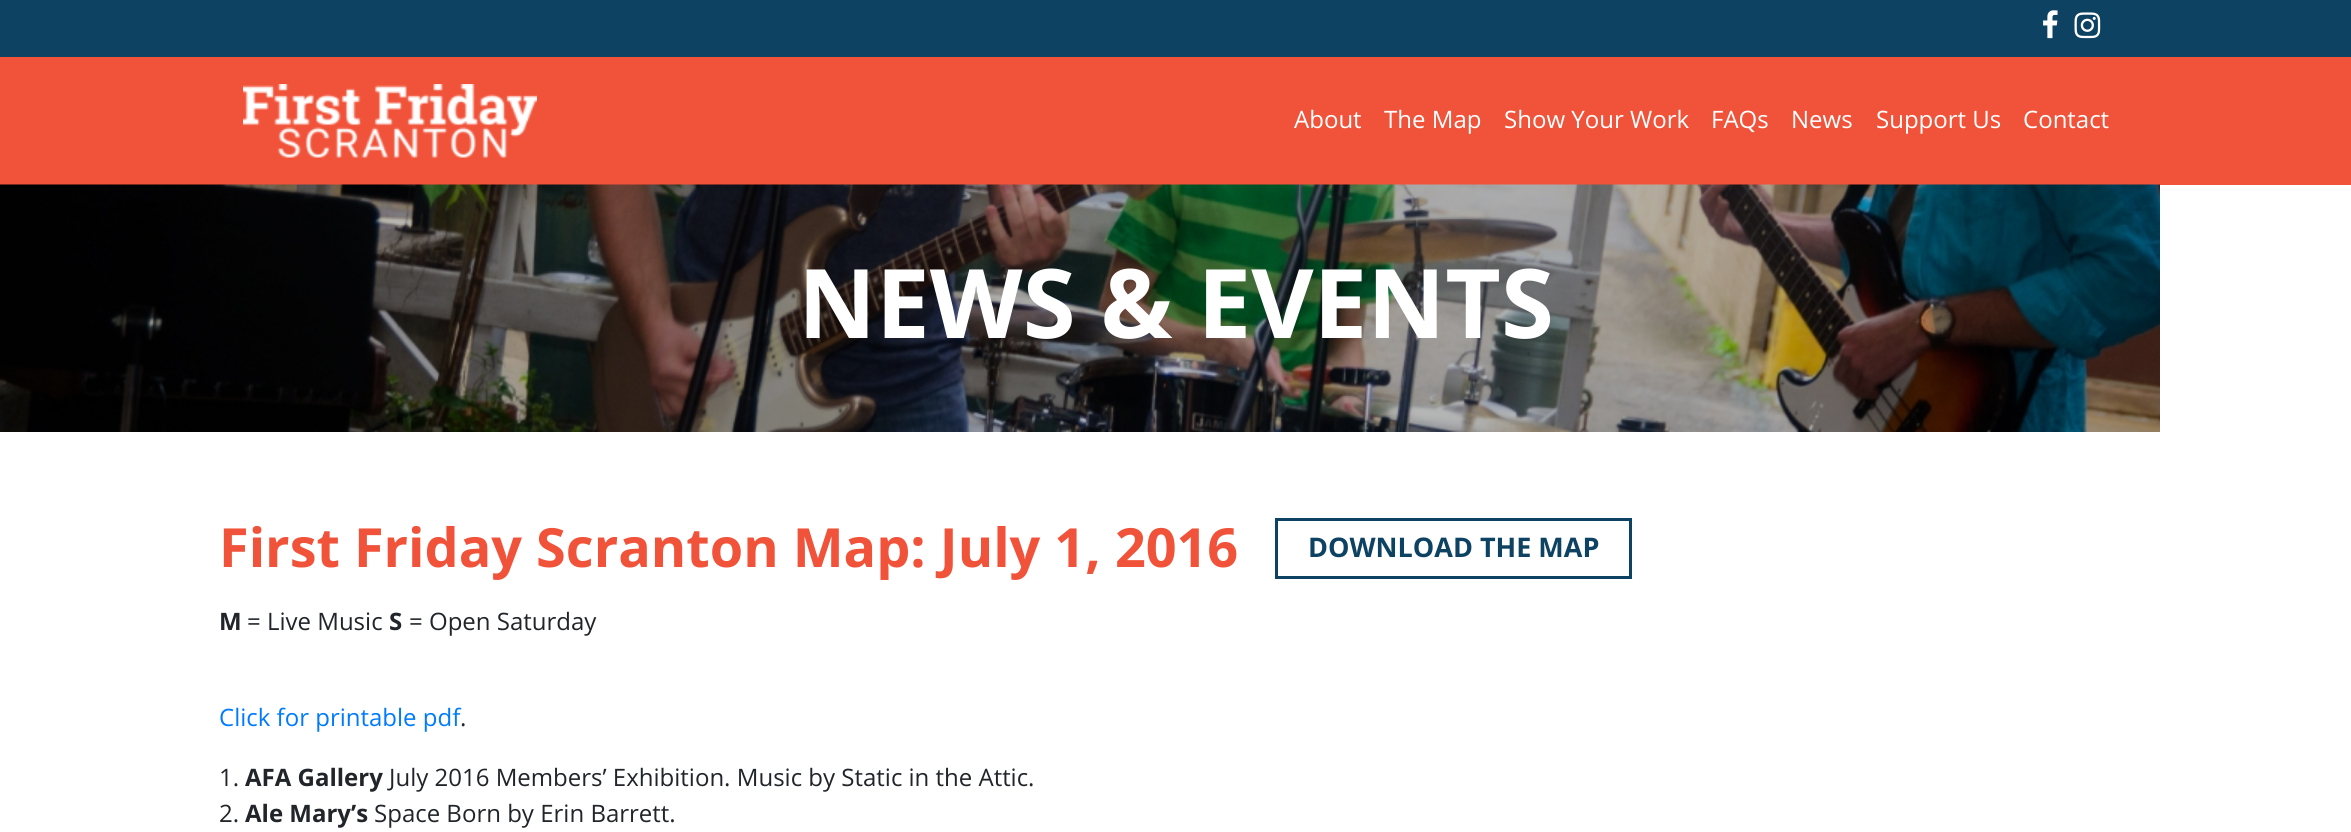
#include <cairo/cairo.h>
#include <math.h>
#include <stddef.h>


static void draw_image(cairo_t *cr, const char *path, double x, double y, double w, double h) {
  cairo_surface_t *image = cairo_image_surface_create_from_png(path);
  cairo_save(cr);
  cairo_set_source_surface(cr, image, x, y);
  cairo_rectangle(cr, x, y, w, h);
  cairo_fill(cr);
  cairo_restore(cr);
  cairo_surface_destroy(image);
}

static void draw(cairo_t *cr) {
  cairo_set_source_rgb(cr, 1, 1, 1);
  cairo_paint(cr);
  cairo_set_source_rgb(cr, 13 / 255.0, 66 / 255.0, 99 / 255.0);
  cairo_rectangle(cr, 0, 0, 2351, 57);
  cairo_fill(cr);
  draw_image(cr, "images/1.png", 2043, 10, 15, 29);
  draw_image(cr, "images/2.png", 2074, 12, 27, 27);
  cairo_set_source_rgb(cr, 240 / 255.0, 83 / 255.0, 58 / 255.0);
  cairo_rectangle(cr, 0, 57, 2351, 128);
  cairo_fill(cr);
  draw_image(cr, "images/3.png", 243, 84, 294, 74);
  draw_image(cr, "images/4.png", 0, 184, 2160, 248);
  cairo_rectangle(cr, 1276.5, 519.5, 354, 58);
  cairo_set_source_rgb(cr, 13 / 255.0, 66 / 255.0, 99 / 255.0);
  cairo_set_line_width(cr, 3);
  cairo_stroke(cr);
  cairo_select_font_face(cr, "Open Sans", CAIRO_FONT_SLANT_NORMAL, CAIRO_FONT_WEIGHT_NORMAL);
  cairo_set_font_size(cr, 24);
  cairo_set_source_rgb(cr, 1, 1, 1);
  cairo_move_to(cr, 1294, 128);
  cairo_show_text(cr, "About");
  cairo_move_to(cr, 1384, 128);
  cairo_show_text(cr, "The Map");
  cairo_move_to(cr, 1504, 128);
  cairo_show_text(cr, "Show Your Work");
  cairo_move_to(cr, 1711, 128);
  cairo_show_text(cr, "FAQs");
  cairo_move_to(cr, 1791, 128);
  cairo_show_text(cr, "News");
  cairo_move_to(cr, 1876, 128);
  cairo_show_text(cr, "Support Us");
  cairo_move_to(cr, 2023, 128);
  cairo_show_text(cr, "Contact");
  cairo_select_font_face(cr, "Open Sans", CAIRO_FONT_SLANT_NORMAL, CAIRO_FONT_WEIGHT_BOLD);
  cairo_set_font_size(cr, 96);
  cairo_move_to(cr, 798, 338);
  cairo_show_text(cr, "NEWS & EVENTS");
  cairo_set_font_size(cr, 54);
  cairo_set_source_rgb(cr, 240 / 255.0, 83 / 255.0, 58 / 255.0);
  cairo_move_to(cr, 219, 567);
  cairo_show_text(cr, "First Friday Scranton Map: July 1, 2016");
  cairo_set_font_size(cr, 27);
  cairo_set_source_rgb(cr, 13 / 255.0, 66 / 255.0, 99 / 255.0);
  cairo_move_to(cr, 1308, 557);
  cairo_show_text(cr, "DOWNLOAD THE MAP");
  cairo_set_font_size(cr, 24);
  cairo_set_source_rgb(cr, 33 / 255.0, 37 / 255.0, 41 / 255.0);
  cairo_move_to(cr, 219, 630);
  cairo_show_text(cr, "M");
  cairo_select_font_face(cr, "Open Sans", CAIRO_FONT_SLANT_NORMAL, CAIRO_FONT_WEIGHT_NORMAL);
  cairo_move_to(cr, 247, 630);
  cairo_show_text(cr, "= Live Music");
  cairo_select_font_face(cr, "Open Sans", CAIRO_FONT_SLANT_NORMAL, CAIRO_FONT_WEIGHT_BOLD);
  cairo_move_to(cr, 389, 630);
  cairo_show_text(cr, "S");
  cairo_select_font_face(cr, "Open Sans", CAIRO_FONT_SLANT_NORMAL, CAIRO_FONT_WEIGHT_NORMAL);
  cairo_move_to(cr, 409, 630);
  cairo_show_text(cr, "= Open Saturday");
  cairo_set_source_rgb(cr, 0, 123 / 255.0, 1);
  cairo_move_to(cr, 219, 726);
  cairo_show_text(cr, "Click for printable pdf");
  cairo_set_source_rgb(cr, 33 / 255.0, 37 / 255.0, 41 / 255.0);
  cairo_move_to(cr, 460, 726);
  cairo_show_text(cr, ".");
  cairo_move_to(cr, 219, 786);
  cairo_show_text(cr, "1.");
  cairo_select_font_face(cr, "Open Sans", CAIRO_FONT_SLANT_NORMAL, CAIRO_FONT_WEIGHT_BOLD);
  cairo_move_to(cr, 245, 786);
  cairo_show_text(cr, "AFA Gallery");
  cairo_select_font_face(cr, "Open Sans", CAIRO_FONT_SLANT_NORMAL, CAIRO_FONT_WEIGHT_NORMAL);
  cairo_move_to(cr, 389, 786);
  cairo_show_text(cr, "July 2016 Members’ Exhibition. Music by Static in the Attic.");
  cairo_move_to(cr, 219, 822);
  cairo_show_text(cr, "2.");
  cairo_select_font_face(cr, "Open Sans", CAIRO_FONT_SLANT_NORMAL, CAIRO_FONT_WEIGHT_BOLD);
  cairo_move_to(cr, 245, 822);
  cairo_show_text(cr, "Ale Mary’s");
  cairo_select_font_face(cr, "Open Sans", CAIRO_FONT_SLANT_NORMAL, CAIRO_FONT_WEIGHT_NORMAL);
  cairo_move_to(cr, 374, 822);
  cairo_show_text(cr, "Space Born by Erin Barrett.");
}

int main(void) {
  cairo_surface_t *surface = cairo_image_surface_create(CAIRO_FORMAT_RGB24, 2351, 832);
  cairo_t *cr = cairo_create(surface);
  cairo_font_options_t *options = cairo_font_options_create();
  cairo_font_options_set_hint_metrics(options, CAIRO_HINT_METRICS_OFF);
  cairo_font_options_set_hint_style(options, CAIRO_HINT_STYLE_NONE);
  cairo_set_font_options(cr, options);
  cairo_set_miter_limit(cr, 4);
  draw(cr);
  cairo_surface_write_to_png(surface, "out.png");
  cairo_font_options_destroy(options);
  cairo_destroy(cr);
  cairo_surface_destroy(surface);
  return 0;
}
